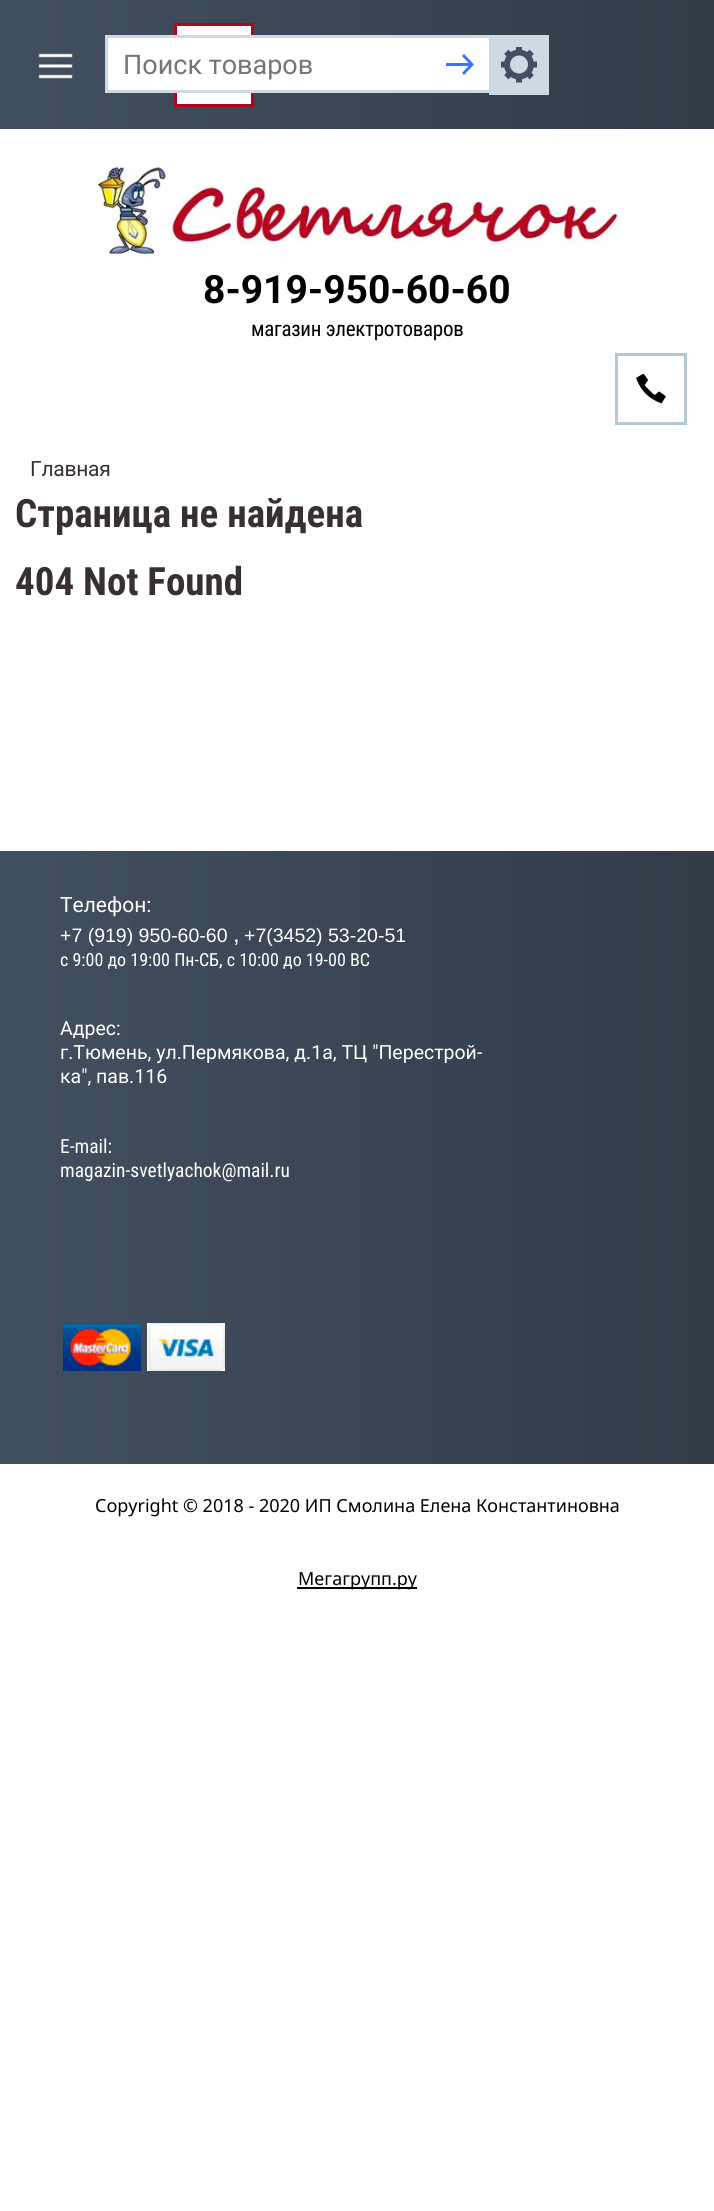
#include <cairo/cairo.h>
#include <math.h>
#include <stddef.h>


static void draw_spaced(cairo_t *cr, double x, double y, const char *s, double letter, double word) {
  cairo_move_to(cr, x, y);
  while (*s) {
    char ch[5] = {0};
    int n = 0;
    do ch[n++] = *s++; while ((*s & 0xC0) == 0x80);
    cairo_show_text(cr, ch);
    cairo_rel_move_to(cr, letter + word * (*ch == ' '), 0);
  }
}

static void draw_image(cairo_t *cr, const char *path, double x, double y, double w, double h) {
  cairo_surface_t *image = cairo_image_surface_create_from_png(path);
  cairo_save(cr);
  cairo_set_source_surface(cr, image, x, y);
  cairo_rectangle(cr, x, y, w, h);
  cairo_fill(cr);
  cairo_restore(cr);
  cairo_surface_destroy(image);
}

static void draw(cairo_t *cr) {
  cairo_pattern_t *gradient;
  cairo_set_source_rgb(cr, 1, 1, 1);
  cairo_paint(cr);
  gradient = cairo_pattern_create_linear(0, 65, 714, 64);
  cairo_pattern_add_color_stop_rgba(gradient, 0, 66 / 255.0, 79 / 255.0, 96 / 255.0, 1);
  cairo_pattern_add_color_stop_rgba(gradient, 1, 49 / 255.0, 60 / 255.0, 71 / 255.0, 1);
  cairo_set_source(cr, gradient);
  cairo_pattern_destroy(gradient);
  cairo_rectangle(cr, 0, 0, 714, 129);
  cairo_fill(cr);
  cairo_set_source_rgb(cr, 1, 1, 1);
  cairo_rectangle(cr, 175.5, 24.5, 77, 81);
  cairo_fill_preserve(cr);
  cairo_set_source_rgb(cr, 173 / 255.0, 5 / 255.0, 29 / 255.0);
  cairo_set_line_width(cr, 3);
  cairo_stroke(cr);
  cairo_set_source_rgb(cr, 1, 1, 1);
  cairo_rectangle(cr, 108, 38, 381, 52);
  cairo_fill(cr);
  cairo_rectangle(cr, 106.5, 36.5, 441, 55);
  cairo_set_source_rgb(cr, 205 / 255.0, 218 / 255.0, 227 / 255.0);
  cairo_stroke(cr);
  cairo_save(cr);
  cairo_rectangle(cr, 446, 54, 28, 21);
  cairo_clip(cr);
  cairo_set_source_rgb(cr, 51 / 255.0, 117 / 255.0, 252 / 255.0);
  cairo_new_path(cr);
  cairo_move_to(cr, 468.5, 63);
  cairo_line_to(cr, 462, 56);
  cairo_line_to(cr, 464, 54);
  cairo_line_to(cr, 474, 64.5);
  cairo_line_to(cr, 464, 75);
  cairo_line_to(cr, 462, 73);
  cairo_line_to(cr, 468.5, 66);
  cairo_line_to(cr, 445.5, 66);
  cairo_line_to(cr, 445.5, 63);
  cairo_close_path(cr);
  cairo_fill(cr);
  cairo_restore(cr);
  cairo_rectangle(cr, 489, 38, 60, 57);
  cairo_fill(cr);
  draw_image(cr, "images/1.png", 501, 47, 36, 36);
  draw_image(cr, "images/2.png", 38, 53, 35, 26);
  draw_image(cr, "images/3.png", 94, 166, 526, 88);
  draw_image(cr, "images/4.png", 636, 374, 30, 30);
  cairo_rectangle(cr, 616.5, 354.5, 69, 69);
  cairo_set_source_rgb(cr, 180 / 255.0, 200 / 255.0, 213 / 255.0);
  cairo_stroke(cr);
  gradient = cairo_pattern_create_linear(0, 1157, 714, 1157);
  cairo_pattern_add_color_stop_rgba(gradient, 0, 66 / 255.0, 79 / 255.0, 96 / 255.0, 1);
  cairo_pattern_add_color_stop_rgba(gradient, 1, 49 / 255.0, 60 / 255.0, 71 / 255.0, 1);
  cairo_set_source(cr, gradient);
  cairo_pattern_destroy(gradient);
  cairo_rectangle(cr, 0, 851, 714, 613);
  cairo_fill(cr);
  draw_image(cr, "images/5.png", 63, 1323, 78, 48);
  draw_image(cr, "images/6.png", 147, 1323, 78, 48);
  cairo_set_source_rgb(cr, 0, 0, 0);
  cairo_rectangle(cr, 297, 1587, 120, 2);
  cairo_fill(cr);
  cairo_select_font_face(cr, "Roboto", CAIRO_FONT_SLANT_NORMAL, CAIRO_FONT_WEIGHT_NORMAL);
  cairo_set_font_size(cr, 27);
  cairo_set_source_rgb(cr, 117 / 255.0, 117 / 255.0, 117 / 255.0);
  cairo_move_to(cr, 123, 74);
  cairo_show_text(cr, "Поиск товаров");
  cairo_select_font_face(cr, "Roboto", CAIRO_FONT_SLANT_NORMAL, CAIRO_FONT_WEIGHT_BOLD);
  cairo_set_font_size(cr, 39);
  cairo_set_source_rgb(cr, 0, 0, 0);
  cairo_move_to(cr, 203, 303);
  cairo_show_text(cr, "8-919-950-60-60");
  cairo_select_font_face(cr, "Roboto Condensed", CAIRO_FONT_SLANT_NORMAL, CAIRO_FONT_WEIGHT_NORMAL);
  cairo_set_font_size(cr, 21);
  draw_spaced(cr, 251, 336, "магазин электротоваров", -0.3, 0);
  cairo_select_font_face(cr, "Roboto", CAIRO_FONT_SLANT_NORMAL, CAIRO_FONT_WEIGHT_NORMAL);
  cairo_set_source_rgb(cr, 56 / 255.0, 48 / 255.0, 48 / 255.0);
  draw_spaced(cr, 30, 476, "Главная", -0.25, 0);
  cairo_select_font_face(cr, "Roboto Condensed", CAIRO_FONT_SLANT_NORMAL, CAIRO_FONT_WEIGHT_BOLD);
  cairo_set_font_size(cr, 39);
  cairo_move_to(cr, 15, 527);
  cairo_show_text(cr, "Страница не найдена");
  cairo_move_to(cr, 15, 595);
  cairo_show_text(cr, "404 Not Found");
  cairo_select_font_face(cr, "Roboto", CAIRO_FONT_SLANT_NORMAL, CAIRO_FONT_WEIGHT_NORMAL);
  cairo_set_font_size(cr, 21);
  cairo_set_source_rgb(cr, 1, 1, 1);
  cairo_move_to(cr, 60, 912);
  cairo_show_text(cr, "Телефон:");
  cairo_select_font_face(cr, "Liberation Sans", CAIRO_FONT_SLANT_NORMAL, CAIRO_FONT_WEIGHT_NORMAL);
  cairo_set_font_size(cr, 19.5);
  cairo_move_to(cr, 60, 942);
  cairo_show_text(cr, "+7 (919) 950-60-60");
  cairo_set_font_size(cr, 24);
  cairo_move_to(cr, 233, 942);
  cairo_show_text(cr, ",");
  cairo_set_font_size(cr, 19.5);
  cairo_move_to(cr, 244, 942);
  cairo_show_text(cr, "+7(3452) 53-20-51");
  cairo_select_font_face(cr, "Roboto Condensed", CAIRO_FONT_SLANT_NORMAL, CAIRO_FONT_WEIGHT_NORMAL);
  cairo_set_font_size(cr, 18);
  cairo_move_to(cr, 60, 966);
  cairo_show_text(cr, "с 9:00 до 19:00 Пн-СБ, с 10:00 до 19-00 ВС");
  cairo_select_font_face(cr, "Roboto", CAIRO_FONT_SLANT_NORMAL, CAIRO_FONT_WEIGHT_NORMAL);
  cairo_set_font_size(cr, 19.5);
  cairo_move_to(cr, 60, 1035);
  cairo_show_text(cr, "Адрес:");
  cairo_move_to(cr, 60, 1059);
  cairo_show_text(cr, "г.Тюмень, ул.Пермякова, д.1а, ТЦ \"Перестрой-");
  cairo_move_to(cr, 60, 1083);
  cairo_show_text(cr, "ка\", пав.116");
  cairo_select_font_face(cr, "Roboto Condensed", CAIRO_FONT_SLANT_NORMAL, CAIRO_FONT_WEIGHT_NORMAL);
  cairo_move_to(cr, 60, 1153);
  cairo_show_text(cr, "Е-mail:");
  cairo_move_to(cr, 60, 1177);
  cairo_show_text(cr, "magazin-svetlyachok@mail.ru");
  cairo_select_font_face(cr, "Noto Sans", CAIRO_FONT_SLANT_NORMAL, CAIRO_FONT_WEIGHT_NORMAL);
  cairo_set_font_size(cr, 18);
  cairo_set_source_rgb(cr, 0, 0, 0);
  cairo_move_to(cr, 95, 1512);
  cairo_show_text(cr, "Copyright © 2018 - 2020 ИП Смолина Елена Константиновна");
  cairo_move_to(cr, 298, 1585);
  cairo_show_text(cr, "Мегагрупп.ру");
}

int main(void) {
  cairo_surface_t *surface = cairo_image_surface_create(CAIRO_FORMAT_RGB24, 714, 2211);
  cairo_t *cr = cairo_create(surface);
  cairo_font_options_t *options = cairo_font_options_create();
  cairo_font_options_set_hint_metrics(options, CAIRO_HINT_METRICS_OFF);
  cairo_font_options_set_hint_style(options, CAIRO_HINT_STYLE_NONE);
  cairo_set_font_options(cr, options);
  cairo_set_miter_limit(cr, 4);
  draw(cr);
  cairo_surface_write_to_png(surface, "out.png");
  cairo_font_options_destroy(options);
  cairo_destroy(cr);
  cairo_surface_destroy(surface);
  return 0;
}
